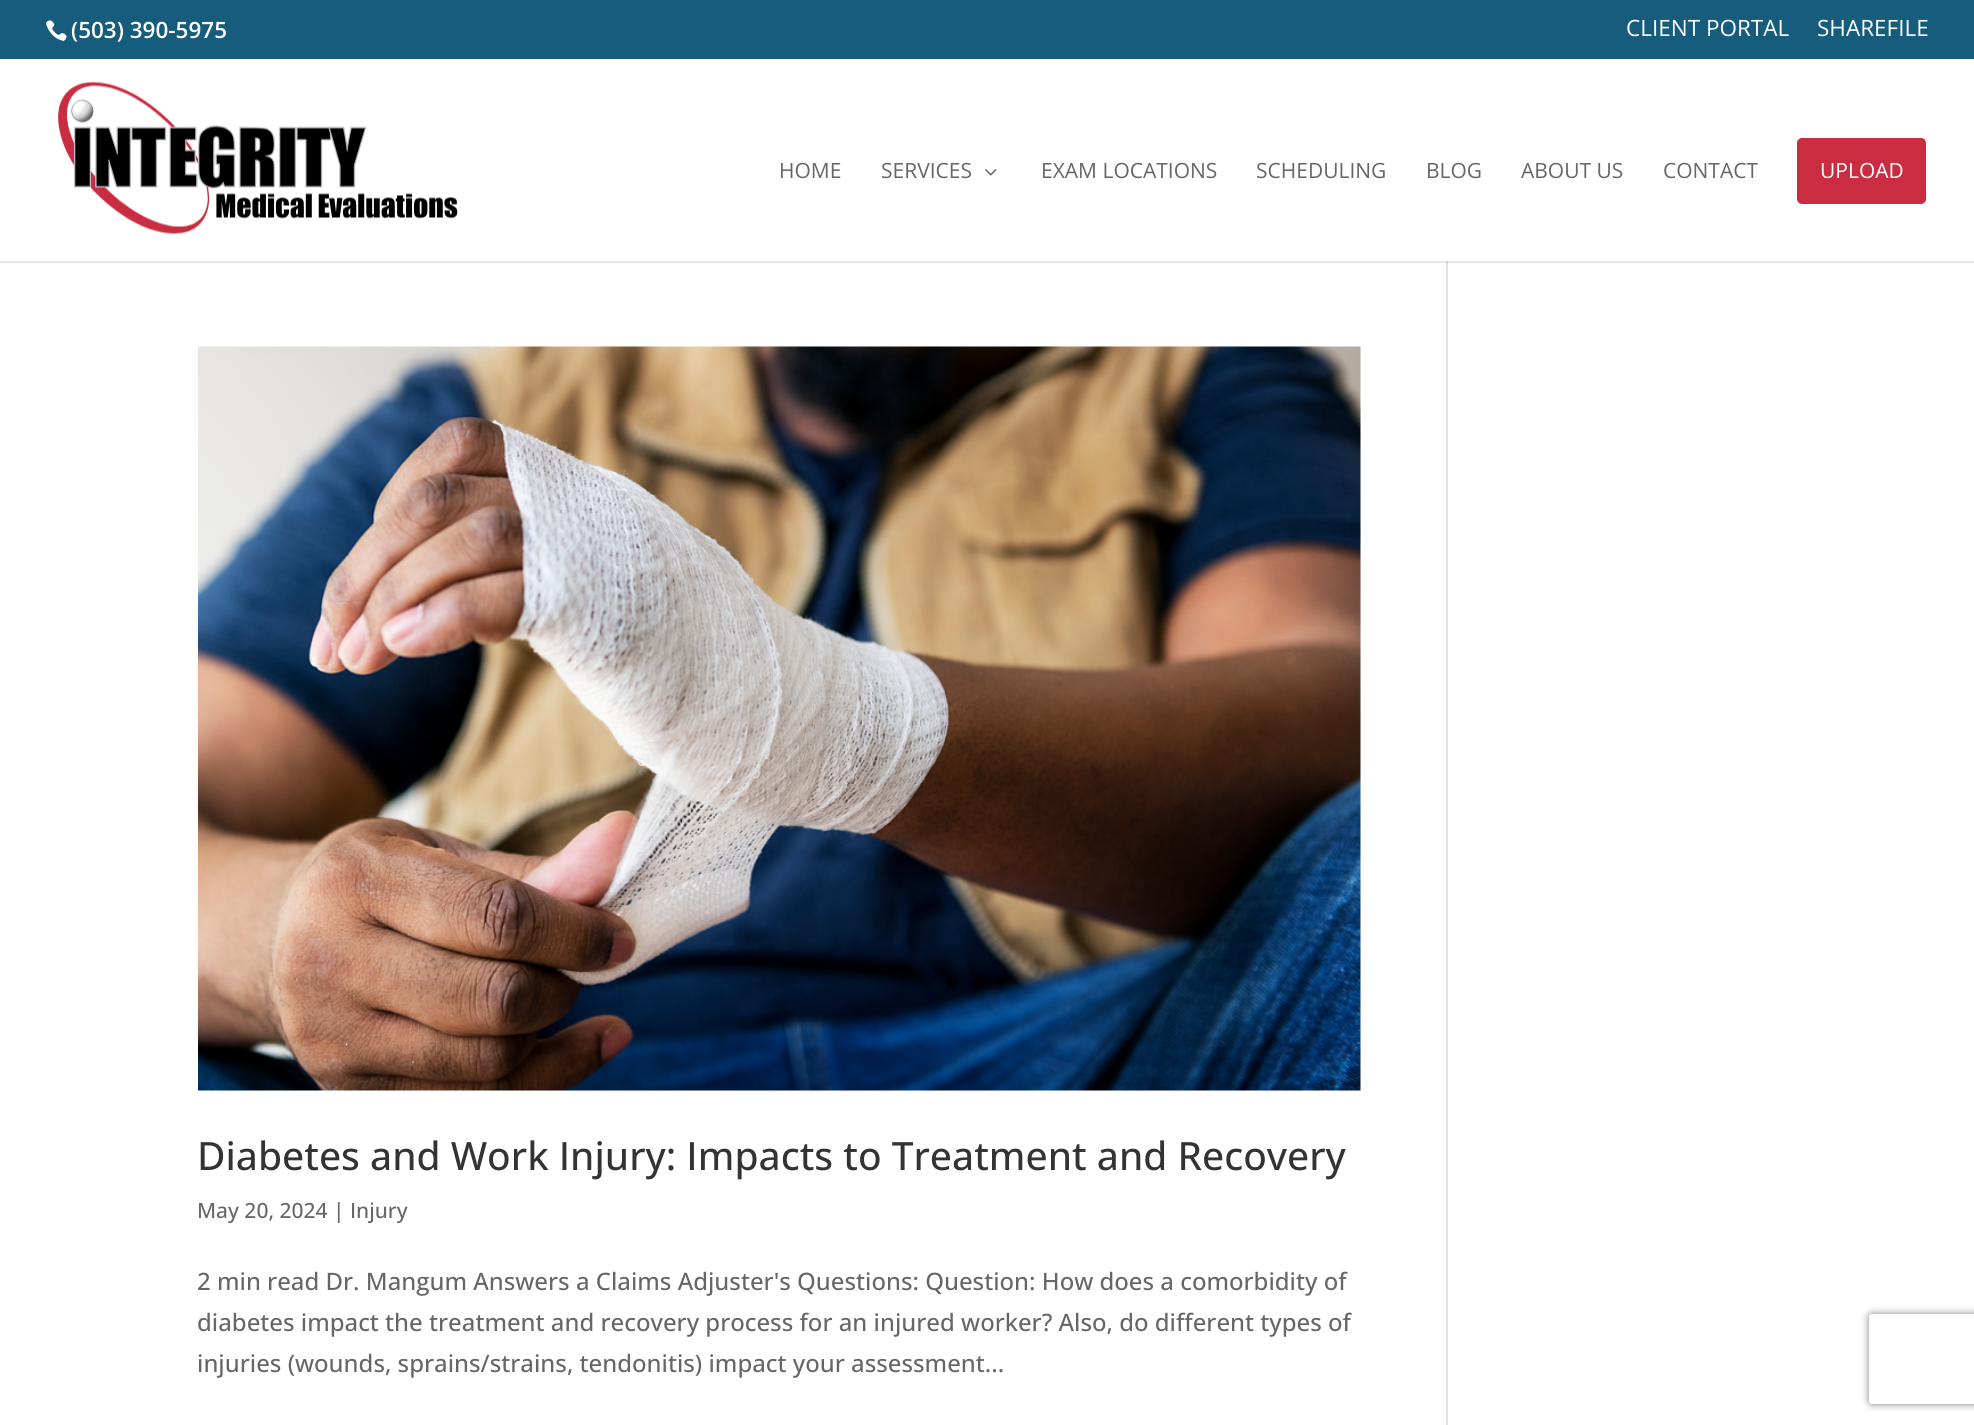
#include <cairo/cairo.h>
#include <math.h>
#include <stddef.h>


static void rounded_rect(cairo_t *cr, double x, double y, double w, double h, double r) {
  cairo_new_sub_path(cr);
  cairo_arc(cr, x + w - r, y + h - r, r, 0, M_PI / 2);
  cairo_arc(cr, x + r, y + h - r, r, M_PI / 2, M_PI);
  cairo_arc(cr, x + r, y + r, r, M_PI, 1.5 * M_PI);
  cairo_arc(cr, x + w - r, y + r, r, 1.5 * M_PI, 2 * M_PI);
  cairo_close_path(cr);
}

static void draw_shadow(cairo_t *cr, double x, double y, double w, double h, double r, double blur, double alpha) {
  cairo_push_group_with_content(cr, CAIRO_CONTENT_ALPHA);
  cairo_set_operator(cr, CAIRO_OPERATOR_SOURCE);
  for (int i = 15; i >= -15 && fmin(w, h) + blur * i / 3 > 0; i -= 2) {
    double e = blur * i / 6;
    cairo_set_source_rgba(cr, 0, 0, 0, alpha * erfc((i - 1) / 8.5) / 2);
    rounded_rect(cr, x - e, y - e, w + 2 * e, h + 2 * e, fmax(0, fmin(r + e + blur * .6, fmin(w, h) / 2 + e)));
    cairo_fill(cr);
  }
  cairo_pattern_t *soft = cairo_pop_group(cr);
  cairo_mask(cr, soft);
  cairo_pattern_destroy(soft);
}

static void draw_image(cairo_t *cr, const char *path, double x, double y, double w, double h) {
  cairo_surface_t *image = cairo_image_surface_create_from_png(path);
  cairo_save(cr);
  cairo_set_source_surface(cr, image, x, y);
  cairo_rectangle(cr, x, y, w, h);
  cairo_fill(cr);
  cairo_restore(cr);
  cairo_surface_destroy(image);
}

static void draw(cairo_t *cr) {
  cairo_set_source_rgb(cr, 1, 1, 1);
  cairo_paint(cr);
  cairo_set_source_rgb(cr, 230 / 255.0, 230 / 255.0, 230 / 255.0);
  cairo_rectangle(cr, 0, 261, 1974, 2);
  cairo_fill(cr);
  cairo_set_source_rgb(cr, 21 / 255.0, 92 / 255.0, 125 / 255.0);
  cairo_rectangle(cr, 0, 0, 1974, 59);
  cairo_fill(cr);
  draw_image(cr, "images/1.png", 45, 20, 22, 21);
  cairo_set_source_rgb(cr, 226 / 255.0, 226 / 255.0, 226 / 255.0);
  cairo_rectangle(cr, 1446, 260, 2, 1165);
  cairo_fill(cr);
  cairo_set_source_rgb(cr, 1, 1, 1);
  cairo_rectangle(cr, 1446, 260, 2, 1);
  cairo_fill(cr);
  draw_image(cr, "images/2.png", 58, 81, 400, 153);
  draw_image(cr, "images/3.png", 985, 169, 12, 7);
  cairo_set_source_rgb(cr, 202 / 255.0, 45 / 255.0, 65 / 255.0);
  rounded_rect(cr, 1797, 138, 129, 66, 5);
  cairo_fill(cr);
  draw_image(cr, "images/4.png", 198, 346, 1163, 745);
  cairo_set_source_rgb(cr, 203 / 255.0, 203 / 255.0, 203 / 255.0);
  cairo_rectangle(cr, 1446, 261, 2, 2);
  cairo_fill(cr);
  cairo_save(cr);
  cairo_set_fill_rule(cr, CAIRO_FILL_RULE_EVEN_ODD);
  cairo_new_path(cr);
  cairo_move_to(cr, 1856, 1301);
  cairo_line_to(cr, 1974, 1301);
  cairo_line_to(cr, 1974, 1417);
  cairo_line_to(cr, 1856, 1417);
  cairo_close_path(cr);
  cairo_move_to(cr, 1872, 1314);
  cairo_line_to(cr, 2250, 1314);
  cairo_curve_to(cr, 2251.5, 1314, 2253, 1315.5, 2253, 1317);
  cairo_line_to(cr, 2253, 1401);
  cairo_curve_to(cr, 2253, 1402.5, 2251.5, 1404, 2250, 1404);
  cairo_line_to(cr, 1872, 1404);
  cairo_curve_to(cr, 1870.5, 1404, 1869, 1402.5, 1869, 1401);
  cairo_line_to(cr, 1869, 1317);
  cairo_curve_to(cr, 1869, 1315.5, 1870.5, 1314, 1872, 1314);
  cairo_close_path(cr);
  cairo_clip(cr);
  cairo_set_source_rgb(cr, 128 / 255.0, 128 / 255.0, 128 / 255.0);
  draw_shadow(cr, 1869, 1314, 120, 90, 3, 4, 1);
  cairo_restore(cr);
  cairo_select_font_face(cr, "Open Sans SemiBold", CAIRO_FONT_SLANT_NORMAL, CAIRO_FONT_WEIGHT_NORMAL);
  cairo_set_font_size(cr, 22.5);
  cairo_set_source_rgb(cr, 1, 1, 1);
  cairo_move_to(cr, 71, 38);
  cairo_show_text(cr, "(503) 390-5975");
  cairo_select_font_face(cr, "Open Sans", CAIRO_FONT_SLANT_NORMAL, CAIRO_FONT_WEIGHT_NORMAL);
  cairo_move_to(cr, 1626, 36);
  cairo_show_text(cr, "CLIENT PORTAL");
  cairo_move_to(cr, 1817, 36);
  cairo_show_text(cr, "SHAREFILE");
  cairo_set_font_size(cr, 21);
  cairo_set_source_rgb(cr, 102 / 255.0, 102 / 255.0, 102 / 255.0);
  cairo_move_to(cr, 779, 178);
  cairo_show_text(cr, "HOME");
  cairo_move_to(cr, 881, 178);
  cairo_show_text(cr, "SERVICES");
  cairo_move_to(cr, 1041, 178);
  cairo_show_text(cr, "EXAM LOCATIONS");
  cairo_move_to(cr, 1256, 178);
  cairo_show_text(cr, "SCHEDULING");
  cairo_move_to(cr, 1426, 178);
  cairo_show_text(cr, "BLOG");
  cairo_move_to(cr, 1521, 178);
  cairo_show_text(cr, "ABOUT US");
  cairo_move_to(cr, 1663, 178);
  cairo_show_text(cr, "CONTACT");
  cairo_set_source_rgb(cr, 1, 1, 1);
  cairo_move_to(cr, 1820, 178);
  cairo_show_text(cr, "UPLOAD");
  cairo_select_font_face(cr, "Open Sans Medium", CAIRO_FONT_SLANT_NORMAL, CAIRO_FONT_WEIGHT_NORMAL);
  cairo_set_font_size(cr, 39);
  cairo_set_source_rgb(cr, 51 / 255.0, 51 / 255.0, 51 / 255.0);
  cairo_move_to(cr, 197, 1170);
  cairo_show_text(cr, "Diabetes and Work Injury: Impacts to Treatment and Recovery");
  cairo_set_font_size(cr, 21);
  cairo_set_source_rgb(cr, 102 / 255.0, 102 / 255.0, 102 / 255.0);
  cairo_move_to(cr, 197, 1218);
  cairo_show_text(cr, "May 20, 2024 | Injury");
  cairo_set_font_size(cr, 24);
  cairo_move_to(cr, 197, 1290);
  cairo_show_text(cr, "2 min read Dr. Mangum Answers a Claims Adjuster's Questions: Question: How does a comorbidity of");
  cairo_move_to(cr, 197, 1331);
  cairo_show_text(cr, "diabetes impact the treatment and recovery process for an injured worker? Also, do different types of");
  cairo_move_to(cr, 197, 1372);
  cairo_show_text(cr, "injuries (wounds, sprains/strains, tendonitis) impact your assessment...");
}

int main(void) {
  cairo_surface_t *surface = cairo_image_surface_create(CAIRO_FORMAT_RGB24, 1974, 1425);
  cairo_t *cr = cairo_create(surface);
  cairo_font_options_t *options = cairo_font_options_create();
  cairo_font_options_set_hint_metrics(options, CAIRO_HINT_METRICS_OFF);
  cairo_font_options_set_hint_style(options, CAIRO_HINT_STYLE_NONE);
  cairo_set_font_options(cr, options);
  cairo_set_miter_limit(cr, 4);
  draw(cr);
  cairo_surface_write_to_png(surface, "out.png");
  cairo_font_options_destroy(options);
  cairo_destroy(cr);
  cairo_surface_destroy(surface);
  return 0;
}
